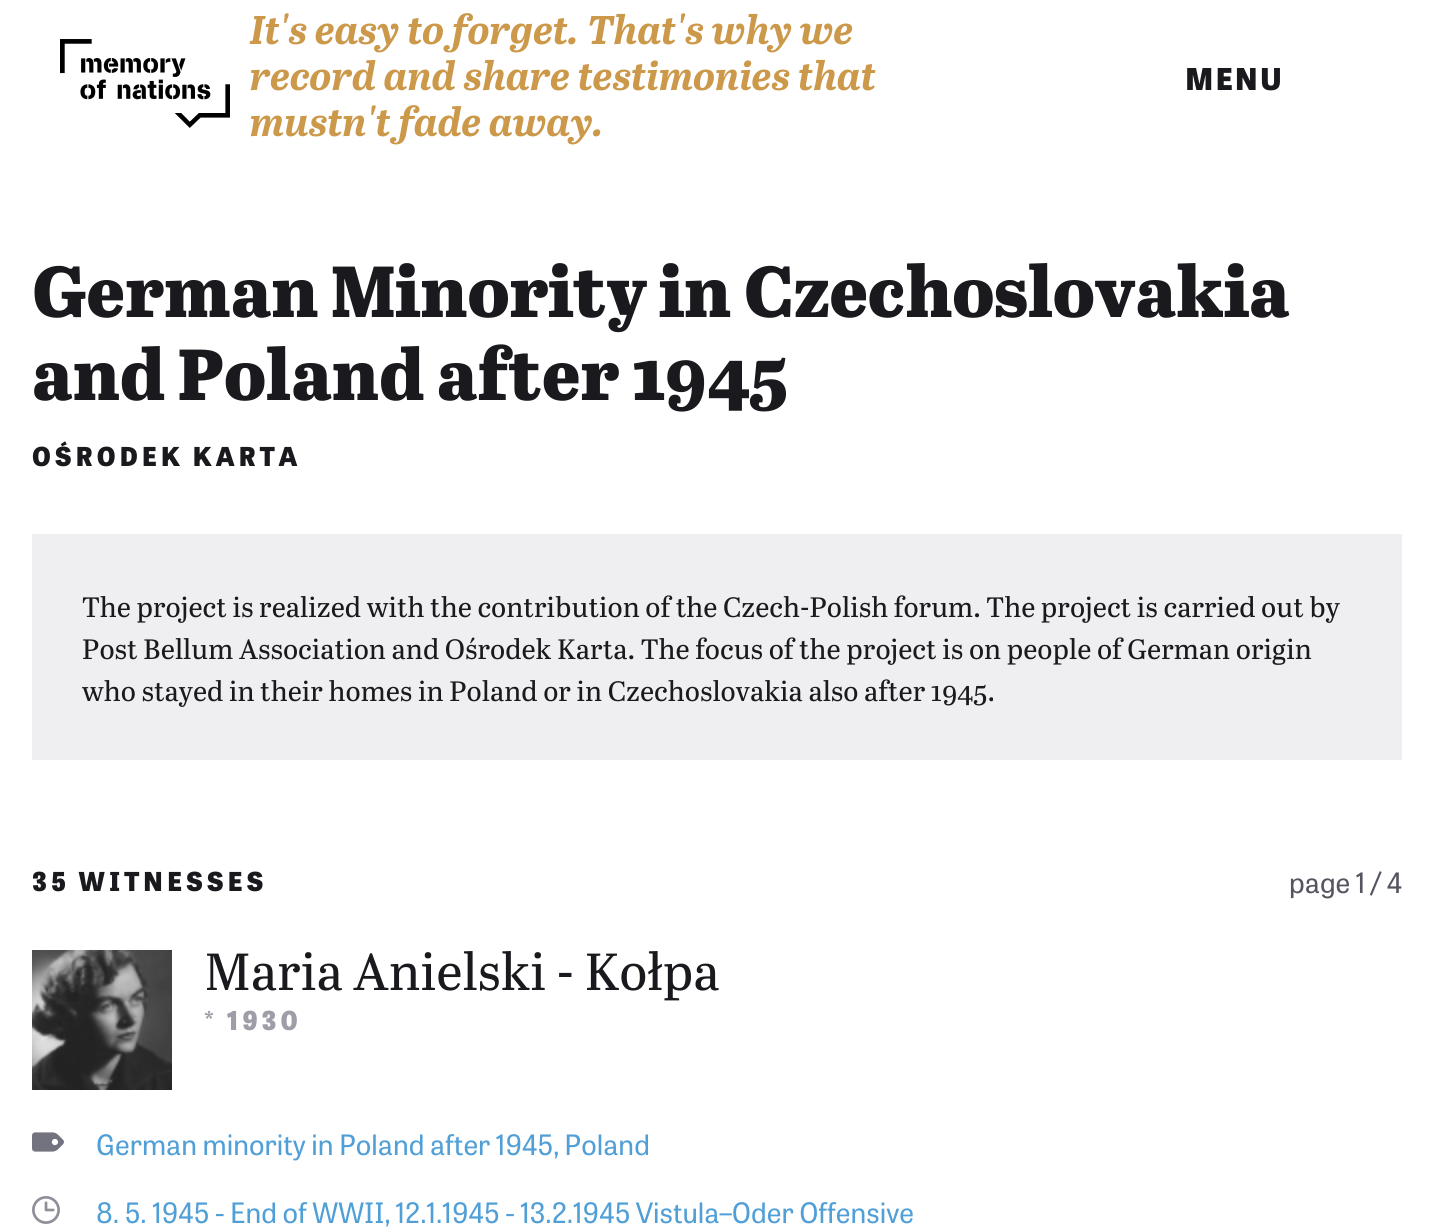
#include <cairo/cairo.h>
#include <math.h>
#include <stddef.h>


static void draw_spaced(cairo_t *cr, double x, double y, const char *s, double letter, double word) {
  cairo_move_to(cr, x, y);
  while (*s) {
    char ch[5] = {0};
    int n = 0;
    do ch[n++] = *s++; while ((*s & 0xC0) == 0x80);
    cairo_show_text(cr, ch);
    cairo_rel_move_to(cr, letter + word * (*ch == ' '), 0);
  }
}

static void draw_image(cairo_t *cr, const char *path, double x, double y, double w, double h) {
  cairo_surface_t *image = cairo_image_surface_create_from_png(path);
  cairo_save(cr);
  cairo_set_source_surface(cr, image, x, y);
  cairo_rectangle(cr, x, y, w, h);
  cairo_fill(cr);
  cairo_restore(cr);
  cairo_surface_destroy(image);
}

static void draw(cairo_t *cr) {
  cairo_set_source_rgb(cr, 1, 1, 1);
  cairo_paint(cr);
  draw_image(cr, "images/1.png", 60, 39, 170, 89);
  cairo_set_source_rgb(cr, 239 / 255.0, 239 / 255.0, 242 / 255.0);
  cairo_rectangle(cr, 32, 534, 1370, 226);
  cairo_fill(cr);
  draw_image(cr, "images/2.png", 32, 950, 140, 140);
  draw_image(cr, "images/3.png", 32, 1132, 32, 20);
  draw_image(cr, "images/4.png", 32, 1196, 28, 28);
  cairo_select_font_face(cr, "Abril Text", CAIRO_FONT_SLANT_ITALIC, CAIRO_FONT_WEIGHT_BOLD);
  cairo_set_font_size(cr, 40);
  cairo_set_source_rgb(cr, 204 / 255.0, 152 / 255.0, 73 / 255.0);
  cairo_move_to(cr, 250, 44);
  cairo_show_text(cr, "It's easy to forget. That's why we");
  cairo_move_to(cr, 250, 90);
  cairo_show_text(cr, "record and share testimonies that");
  cairo_move_to(cr, 250, 136);
  cairo_show_text(cr, "mustn't fade away.");
  cairo_select_font_face(cr, "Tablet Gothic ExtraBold", CAIRO_FONT_SLANT_NORMAL, CAIRO_FONT_WEIGHT_NORMAL);
  cairo_set_font_size(cr, 30);
  cairo_set_source_rgb(cr, 26 / 255.0, 26 / 255.0, 30 / 255.0);
  draw_spaced(cr, 1185, 90, "MENU", 2, 0);
  cairo_select_font_face(cr, "Abril Text ExtraBold", CAIRO_FONT_SLANT_NORMAL, CAIRO_FONT_WEIGHT_NORMAL);
  cairo_set_font_size(cr, 72);
  cairo_move_to(cr, 32, 317);
  cairo_show_text(cr, "German Minority in Czechoslovakia");
  cairo_move_to(cr, 32, 400);
  cairo_show_text(cr, "and Poland after 1945");
  cairo_select_font_face(cr, "Tablet Gothic ExtraBold", CAIRO_FONT_SLANT_NORMAL, CAIRO_FONT_WEIGHT_NORMAL);
  cairo_set_font_size(cr, 26);
  draw_spaced(cr, 32, 466, "OŚRODEK KARTA", 3.9, 0);
  cairo_select_font_face(cr, "Abril Text", CAIRO_FONT_SLANT_NORMAL, CAIRO_FONT_WEIGHT_NORMAL);
  cairo_set_font_size(cr, 28);
  cairo_move_to(cr, 82, 617);
  cairo_show_text(cr, "The project is realized with the contribution of the Czech-Polish forum. The project is carried out by");
  cairo_move_to(cr, 82, 659);
  cairo_show_text(cr, "Post Bellum Association and Ośrodek Karta. The focus of the project is on people of German origin");
  cairo_move_to(cr, 82, 701);
  cairo_show_text(cr, "who stayed in their homes in Poland or in Czechoslovakia also after 1945.");
  cairo_select_font_face(cr, "Tablet Gothic ExtraBold", CAIRO_FONT_SLANT_NORMAL, CAIRO_FONT_WEIGHT_NORMAL);
  cairo_set_font_size(cr, 26);
  draw_spaced(cr, 32, 891, "35 WITNESSES", 3.9, 0);
  cairo_select_font_face(cr, "Tablet Gothic", CAIRO_FONT_SLANT_NORMAL, CAIRO_FONT_WEIGHT_NORMAL);
  cairo_set_font_size(cr, 28);
  cairo_set_source_rgb(cr, 85 / 255.0, 85 / 255.0, 97 / 255.0);
  cairo_move_to(cr, 1289, 893);
  cairo_show_text(cr, "page 1 / 4");
  cairo_select_font_face(cr, "Abril Text", CAIRO_FONT_SLANT_NORMAL, CAIRO_FONT_WEIGHT_NORMAL);
  cairo_set_font_size(cr, 52);
  cairo_set_source_rgb(cr, 26 / 255.0, 26 / 255.0, 30 / 255.0);
  cairo_move_to(cr, 204, 990);
  cairo_show_text(cr, "Maria Anielski - Kołpa");
  cairo_select_font_face(cr, "Tablet Gothic ExtraBold", CAIRO_FONT_SLANT_NORMAL, CAIRO_FONT_WEIGHT_NORMAL);
  cairo_set_font_size(cr, 26);
  cairo_set_source_rgb(cr, 158 / 255.0, 158 / 255.0, 169 / 255.0);
  draw_spaced(cr, 204, 1030, "* 1930", 4, 0);
  cairo_select_font_face(cr, "Tablet Gothic", CAIRO_FONT_SLANT_NORMAL, CAIRO_FONT_WEIGHT_NORMAL);
  cairo_set_font_size(cr, 28);
  cairo_set_source_rgb(cr, 81 / 255.0, 159 / 255.0, 215 / 255.0);
  cairo_move_to(cr, 96, 1155);
  cairo_show_text(cr, "German minority in Poland after 1945, Poland");
  cairo_move_to(cr, 96, 1223);
  cairo_show_text(cr, "8. 5. 1945 - End of WWII, 12.1.1945 - 13.2.1945 Vistula–Oder Offensive");
}

int main(void) {
  cairo_surface_t *surface = cairo_image_surface_create(CAIRO_FORMAT_RGB24, 1433, 1232);
  cairo_t *cr = cairo_create(surface);
  cairo_font_options_t *options = cairo_font_options_create();
  cairo_font_options_set_hint_metrics(options, CAIRO_HINT_METRICS_OFF);
  cairo_font_options_set_hint_style(options, CAIRO_HINT_STYLE_NONE);
  cairo_set_font_options(cr, options);
  cairo_set_miter_limit(cr, 4);
  draw(cr);
  cairo_surface_write_to_png(surface, "out.png");
  cairo_font_options_destroy(options);
  cairo_destroy(cr);
  cairo_surface_destroy(surface);
  return 0;
}
